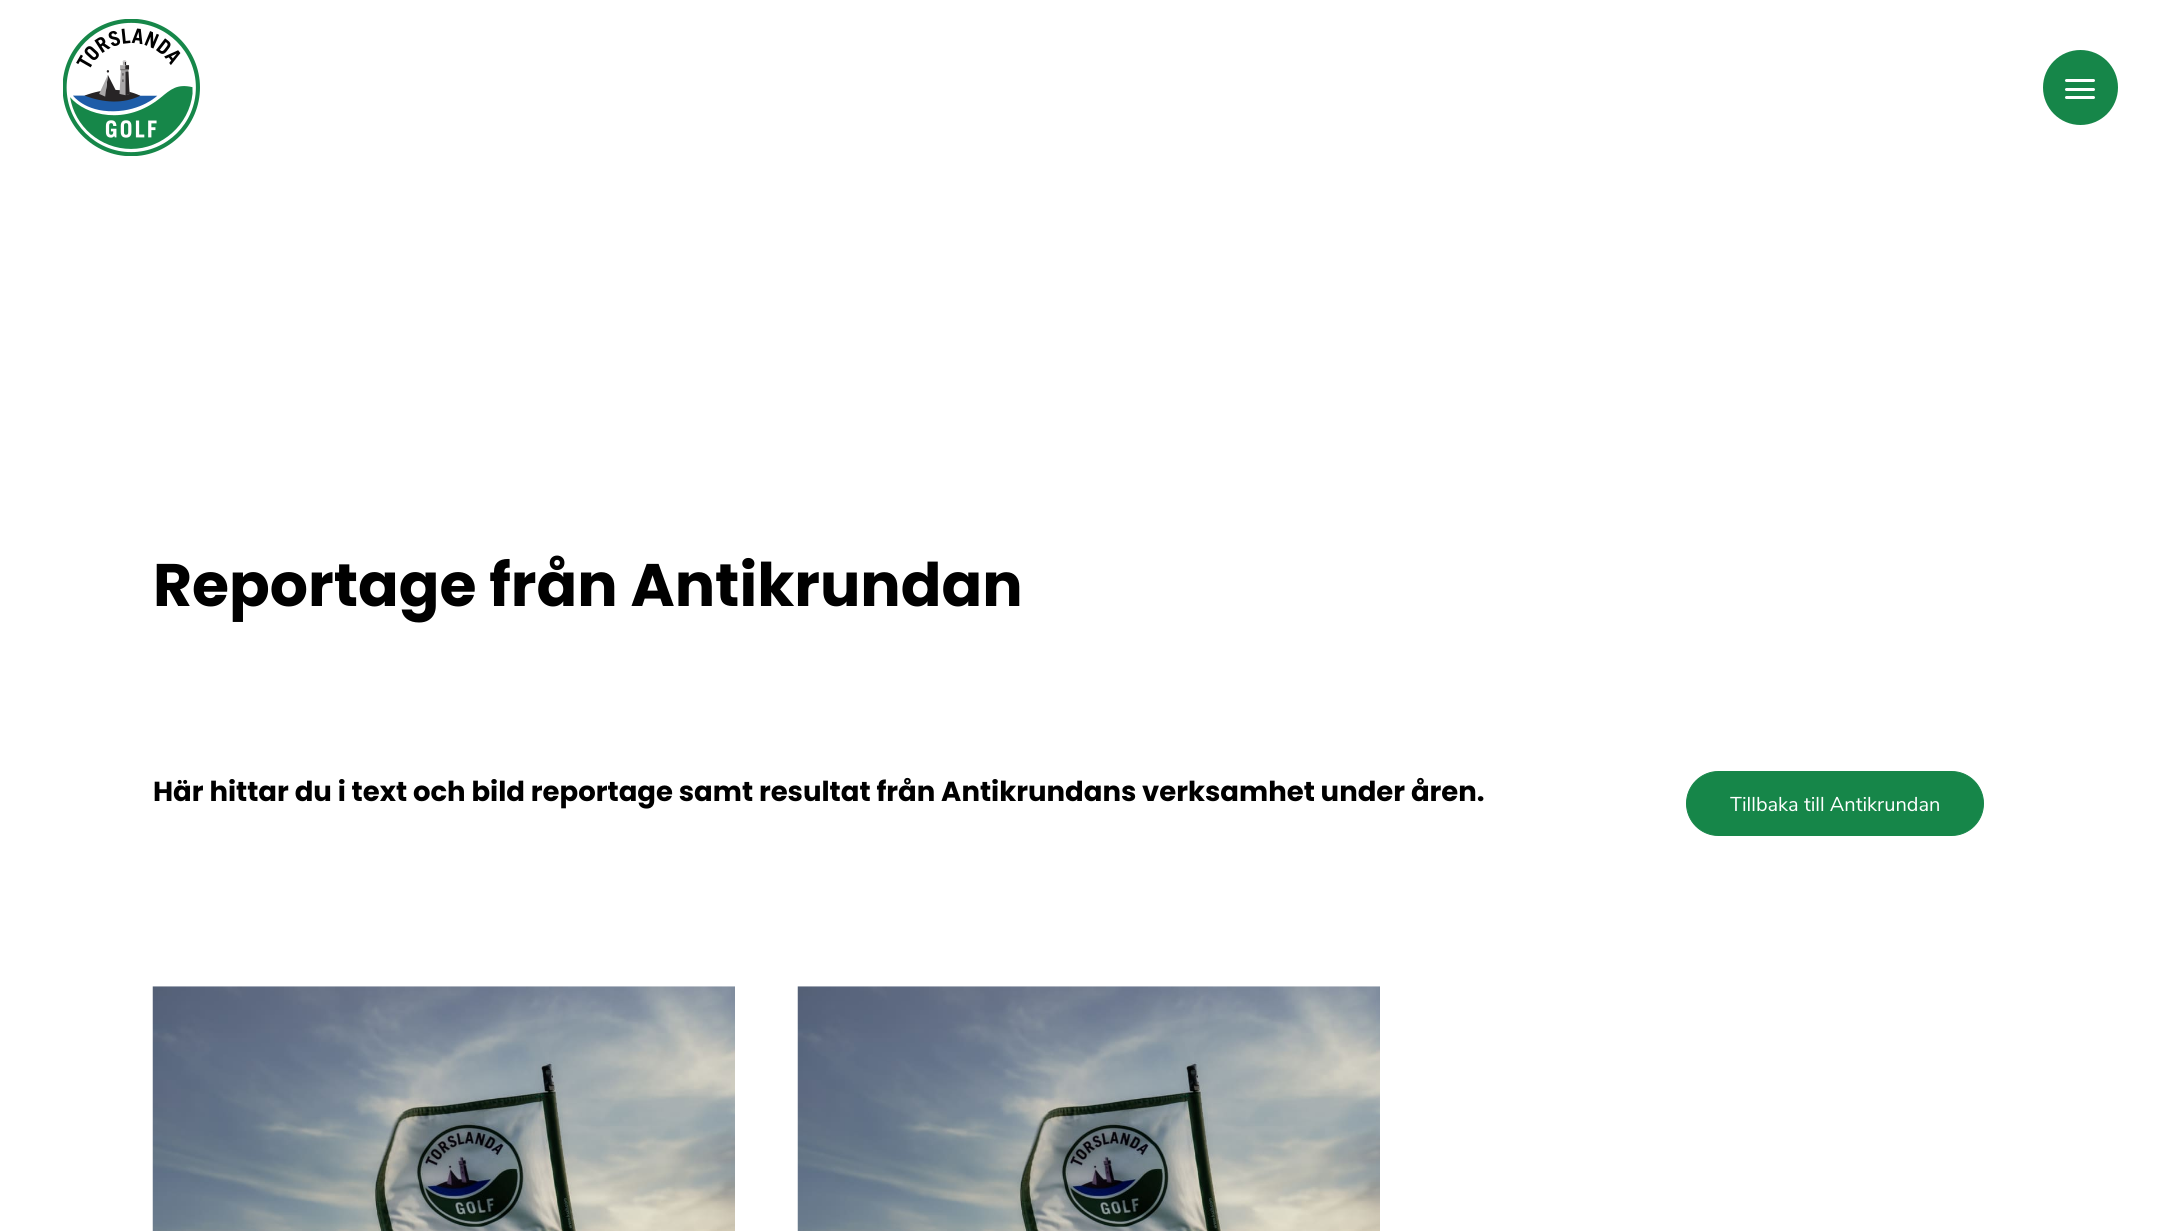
#include <cairo/cairo.h>
#include <math.h>
#include <stddef.h>


static void rounded_rect(cairo_t *cr, double x, double y, double w, double h, double r) {
  cairo_new_sub_path(cr);
  cairo_arc(cr, x + w - r, y + h - r, r, 0, M_PI / 2);
  cairo_arc(cr, x + r, y + h - r, r, M_PI / 2, M_PI);
  cairo_arc(cr, x + r, y + r, r, M_PI, 1.5 * M_PI);
  cairo_arc(cr, x + w - r, y + r, r, 1.5 * M_PI, 2 * M_PI);
  cairo_close_path(cr);
}

static void draw_image(cairo_t *cr, const char *path, double x, double y, double w, double h) {
  cairo_surface_t *image = cairo_image_surface_create_from_png(path);
  cairo_save(cr);
  cairo_set_source_surface(cr, image, x, y);
  cairo_rectangle(cr, x, y, w, h);
  cairo_fill(cr);
  cairo_restore(cr);
  cairo_surface_destroy(image);
}

static void draw(cairo_t *cr) {
  cairo_set_source_rgb(cr, 1, 1, 1);
  cairo_paint(cr);
  draw_image(cr, "images/1.png", 63, 19, 137, 137);
  cairo_set_source_rgb(cr, 22 / 255.0, 134 / 255.0, 73 / 255.0);
  cairo_arc(cr, 2080.5, 87.5, 37.5, 0, 2 * M_PI);
  cairo_fill(cr);
  cairo_set_source_rgb(cr, 1, 1, 1);
  rounded_rect(cr, 2065, 88, 30, 3, 1.5);
  cairo_fill(cr);
  rounded_rect(cr, 2065, 79, 30, 3, 1.5);
  cairo_fill(cr);
  rounded_rect(cr, 2065, 96, 30, 3, 1.5);
  cairo_fill(cr);
  cairo_set_source_rgb(cr, 22 / 255.0, 134 / 255.0, 73 / 255.0);
  rounded_rect(cr, 1686.5, 771.5, 297, 64, 32);
  cairo_fill_preserve(cr);
  cairo_set_line_width(cr, 1);
  cairo_stroke(cr);
  draw_image(cr, "images/2.png", 152, 986, 583, 245);
  draw_image(cr, "images/3.png", 797, 986, 583, 245);
  cairo_select_font_face(cr, "Poppins", CAIRO_FONT_SLANT_NORMAL, CAIRO_FONT_WEIGHT_BOLD);
  cairo_set_font_size(cr, 60);
  cairo_set_source_rgb(cr, 0, 0, 0);
  cairo_move_to(cr, 153, 606);
  cairo_show_text(cr, "Reportage från Antikrundan");
  cairo_set_font_size(cr, 27.5);
  cairo_move_to(cr, 153, 801);
  cairo_show_text(cr, "Här hittar du i text och bild reportage samt resultat från Antikrundans verksamhet under åren.");
  cairo_select_font_face(cr, "Nunito Sans", CAIRO_FONT_SLANT_NORMAL, CAIRO_FONT_WEIGHT_NORMAL);
  cairo_set_font_size(cr, 20);
  cairo_set_source_rgb(cr, 1, 1, 1);
  cairo_move_to(cr, 1730, 811);
  cairo_show_text(cr, "Tillbaka till Antikrundan");
}

int main(void) {
  cairo_surface_t *surface = cairo_image_surface_create(CAIRO_FORMAT_RGB24, 2180, 1231);
  cairo_t *cr = cairo_create(surface);
  cairo_font_options_t *options = cairo_font_options_create();
  cairo_font_options_set_hint_metrics(options, CAIRO_HINT_METRICS_OFF);
  cairo_font_options_set_hint_style(options, CAIRO_HINT_STYLE_NONE);
  cairo_set_font_options(cr, options);
  cairo_set_miter_limit(cr, 4);
  draw(cr);
  cairo_surface_write_to_png(surface, "out.png");
  cairo_font_options_destroy(options);
  cairo_destroy(cr);
  cairo_surface_destroy(surface);
  return 0;
}
